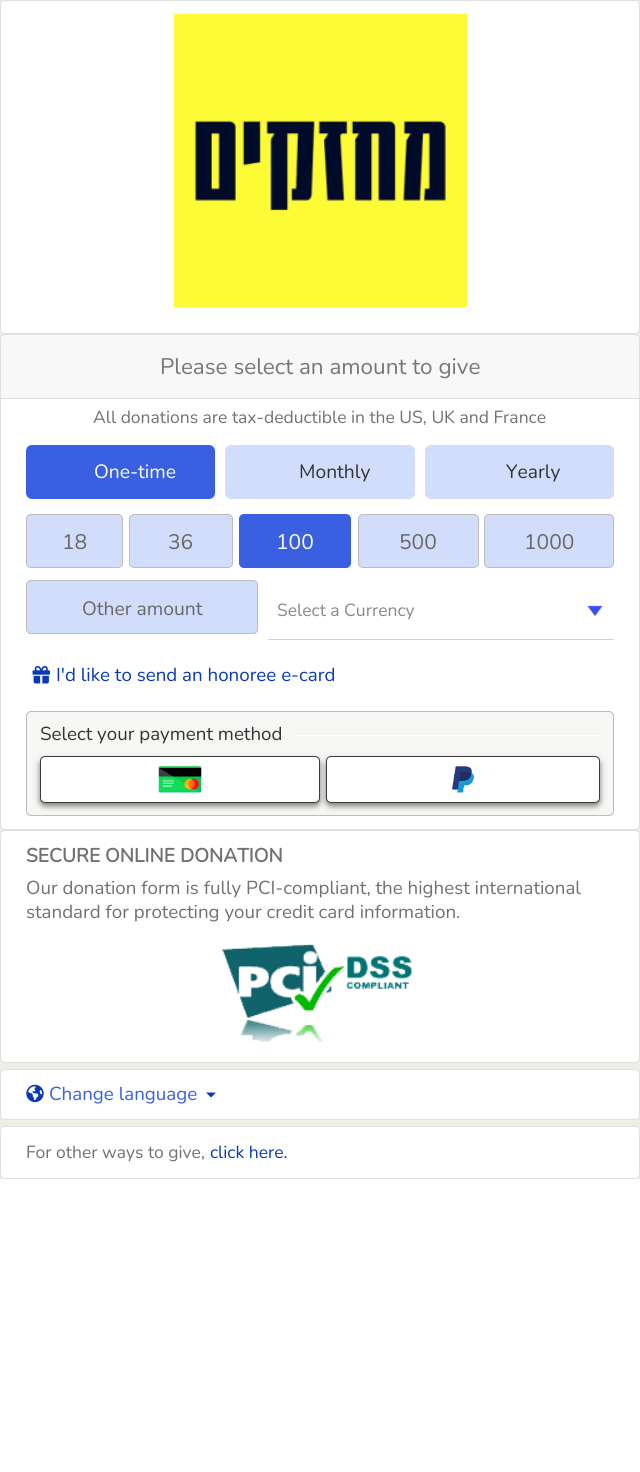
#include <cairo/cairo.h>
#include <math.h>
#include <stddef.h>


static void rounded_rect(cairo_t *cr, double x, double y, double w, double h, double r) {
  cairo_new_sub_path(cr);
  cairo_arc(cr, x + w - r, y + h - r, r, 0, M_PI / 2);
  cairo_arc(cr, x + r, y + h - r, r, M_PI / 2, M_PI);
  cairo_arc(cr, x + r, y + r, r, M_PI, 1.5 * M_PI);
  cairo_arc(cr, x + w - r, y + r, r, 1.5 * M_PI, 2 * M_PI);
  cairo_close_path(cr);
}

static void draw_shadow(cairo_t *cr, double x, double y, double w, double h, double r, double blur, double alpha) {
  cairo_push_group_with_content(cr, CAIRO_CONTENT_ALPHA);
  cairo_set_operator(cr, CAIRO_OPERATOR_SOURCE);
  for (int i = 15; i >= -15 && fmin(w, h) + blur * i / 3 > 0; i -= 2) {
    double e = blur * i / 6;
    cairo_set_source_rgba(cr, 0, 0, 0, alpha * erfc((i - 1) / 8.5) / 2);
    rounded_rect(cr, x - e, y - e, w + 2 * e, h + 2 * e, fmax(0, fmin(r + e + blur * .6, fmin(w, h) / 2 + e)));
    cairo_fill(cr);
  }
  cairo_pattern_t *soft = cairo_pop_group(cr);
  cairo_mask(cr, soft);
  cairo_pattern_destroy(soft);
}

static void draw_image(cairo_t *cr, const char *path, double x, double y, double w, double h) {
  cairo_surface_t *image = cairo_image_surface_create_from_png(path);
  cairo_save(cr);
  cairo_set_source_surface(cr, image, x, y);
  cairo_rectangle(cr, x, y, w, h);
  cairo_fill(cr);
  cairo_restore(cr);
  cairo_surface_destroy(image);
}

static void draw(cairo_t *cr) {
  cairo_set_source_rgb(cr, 1, 1, 1);
  cairo_paint(cr);
  cairo_set_source_rgb(cr, 238 / 255.0, 238 / 255.0, 233 / 255.0);
  cairo_rectangle(cr, 0, 0, 640, 1179);
  cairo_fill(cr);
  cairo_set_source_rgb(cr, 1, 1, 1);
  rounded_rect(cr, 0, 0, 640, 334, 5);
  cairo_fill(cr);
  rounded_rect(cr, 0.5, 0.5, 639, 333, 4.5);
  cairo_set_source_rgba(cr, 0, 0, 0, 0.12);
  cairo_set_line_width(cr, 1);
  cairo_stroke(cr);
  draw_image(cr, "images/1.png", 173, 13, 295, 295);
  cairo_set_source_rgb(cr, 1, 1, 1);
  rounded_rect(cr, 0, 334, 640, 496, 5);
  cairo_fill(cr);
  rounded_rect(cr, 0.5, 334.5, 639, 495, 4.5);
  cairo_set_source_rgba(cr, 0, 0, 0, 0.12);
  cairo_stroke(cr);
  cairo_set_source_rgba(cr, 0, 0, 0, 0.03);
  cairo_rectangle(cr, 1, 335, 638, 63);
  cairo_fill(cr);
  cairo_set_source_rgb(cr, 223 / 255.0, 223 / 255.0, 215 / 255.0);
  cairo_rectangle(cr, 1, 398, 638, 1);
  cairo_fill(cr);
  cairo_set_source_rgb(cr, 56 / 255.0, 96 / 255.0, 224 / 255.0);
  rounded_rect(cr, 26, 445, 189, 54, 6);
  cairo_fill(cr);
  cairo_set_source_rgb(cr, 210 / 255.0, 220 / 255.0, 251 / 255.0);
  rounded_rect(cr, 225, 445, 190, 54, 6);
  cairo_fill(cr);
  rounded_rect(cr, 425, 445, 189, 54, 6);
  cairo_fill(cr);
  rounded_rect(cr, 26.5, 514.5, 96, 53, 4.5);
  cairo_fill_preserve(cr);
  cairo_set_source_rgb(cr, 188 / 255.0, 188 / 255.0, 185 / 255.0);
  cairo_stroke(cr);
  cairo_set_source_rgb(cr, 210 / 255.0, 220 / 255.0, 251 / 255.0);
  rounded_rect(cr, 129.5, 514.5, 103, 53, 4.5);
  cairo_fill_preserve(cr);
  cairo_set_source_rgb(cr, 188 / 255.0, 188 / 255.0, 185 / 255.0);
  cairo_stroke(cr);
  cairo_set_source_rgb(cr, 56 / 255.0, 96 / 255.0, 224 / 255.0);
  rounded_rect(cr, 239.5, 514.5, 111, 53, 4.5);
  cairo_fill_preserve(cr);
  cairo_stroke(cr);
  cairo_set_source_rgb(cr, 210 / 255.0, 220 / 255.0, 251 / 255.0);
  rounded_rect(cr, 358.5, 514.5, 120, 53, 4.5);
  cairo_fill_preserve(cr);
  cairo_set_source_rgb(cr, 188 / 255.0, 188 / 255.0, 185 / 255.0);
  cairo_stroke(cr);
  cairo_set_source_rgb(cr, 210 / 255.0, 220 / 255.0, 251 / 255.0);
  rounded_rect(cr, 484.5, 514.5, 129, 53, 4.5);
  cairo_fill_preserve(cr);
  cairo_set_source_rgb(cr, 188 / 255.0, 188 / 255.0, 185 / 255.0);
  cairo_stroke(cr);
  cairo_set_source_rgb(cr, 210 / 255.0, 220 / 255.0, 251 / 255.0);
  rounded_rect(cr, 26.5, 580.5, 231, 53, 4.5);
  cairo_fill_preserve(cr);
  cairo_set_source_rgb(cr, 188 / 255.0, 188 / 255.0, 185 / 255.0);
  cairo_stroke(cr);
  draw_image(cr, "images/2.png", 587, 605, 16, 11);
  cairo_set_source_rgb(cr, 206 / 255.0, 212 / 255.0, 218 / 255.0);
  cairo_rectangle(cr, 268, 639, 346, 1);
  cairo_fill(cr);
  draw_image(cr, "images/3.png", 32, 665, 18, 19);
  cairo_set_source_rgb(cr, 246 / 255.0, 247 / 255.0, 244 / 255.0);
  rounded_rect(cr, 26.5, 711.5, 587, 104, 4.5);
  cairo_fill_preserve(cr);
  cairo_set_source_rgb(cr, 188 / 255.0, 188 / 255.0, 185 / 255.0);
  cairo_stroke(cr);
  cairo_set_source_rgb(cr, 1, 1, 1);
  cairo_rectangle(cr, 295, 735, 305, 1);
  cairo_fill(cr);
  cairo_set_source_rgb(cr, 0, 0, 0);
  draw_shadow(cr, 40, 760, 280, 46, 5, 3, 0.5);
  cairo_set_source_rgb(cr, 1, 1, 1);
  rounded_rect(cr, 40.5, 756.5, 279, 46, 4.5);
  cairo_fill_preserve(cr);
  cairo_set_source_rgb(cr, 60 / 255.0, 60 / 255.0, 59 / 255.0);
  cairo_stroke(cr);
  draw_image(cr, "images/4.png", 158, 766, 44, 27);
  cairo_set_source_rgb(cr, 0, 0, 0);
  draw_shadow(cr, 326, 760, 274, 46, 5, 3, 0.5);
  cairo_set_source_rgb(cr, 1, 1, 1);
  rounded_rect(cr, 326.5, 756.5, 273, 46, 4.5);
  cairo_fill_preserve(cr);
  cairo_set_source_rgb(cr, 60 / 255.0, 60 / 255.0, 59 / 255.0);
  cairo_stroke(cr);
  draw_image(cr, "images/5.png", 452, 766, 23, 27);
  cairo_set_source_rgb(cr, 1, 1, 1);
  rounded_rect(cr, 0, 830, 640, 233, 5);
  cairo_fill(cr);
  rounded_rect(cr, 0.5, 830.5, 639, 232, 4.5);
  cairo_set_source_rgba(cr, 0, 0, 0, 0.12);
  cairo_stroke(cr);
  draw_image(cr, "images/6.png", 222, 943, 191, 99);
  cairo_set_source_rgb(cr, 1, 1, 1);
  rounded_rect(cr, 0, 1069, 640, 51, 5);
  cairo_fill(cr);
  rounded_rect(cr, 0.5, 1069.5, 639, 50, 4.5);
  cairo_set_source_rgba(cr, 0, 0, 0, 0.12);
  cairo_stroke(cr);
  draw_image(cr, "images/7.png", 26, 1084, 18, 19);
  cairo_set_source_rgb(cr, 9 / 255.0, 57 / 255.0, 181 / 255.0);
  cairo_new_path(cr);
  cairo_move_to(cr, 206, 1092.5);
  cairo_line_to(cr, 216, 1092.5);
  cairo_line_to(cr, 211, 1097.5);
  cairo_close_path(cr);
  cairo_fill(cr);
  cairo_set_source_rgb(cr, 1, 1, 1);
  rounded_rect(cr, 0, 1126, 640, 53, 5);
  cairo_fill(cr);
  rounded_rect(cr, 0.5, 1126.5, 639, 52, 4.5);
  cairo_set_source_rgba(cr, 0, 0, 0, 0.12);
  cairo_stroke(cr);
  cairo_select_font_face(cr, "Nunito ExtraLight", CAIRO_FONT_SLANT_NORMAL, CAIRO_FONT_WEIGHT_NORMAL);
  cairo_set_font_size(cr, 22.5);
  cairo_set_source_rgb(cr, 119 / 255.0, 119 / 255.0, 119 / 255.0);
  cairo_move_to(cr, 160, 374);
  cairo_show_text(cr, "Please select an amount to give");
  cairo_set_font_size(cr, 17.5);
  cairo_set_source_rgb(cr, 114 / 255.0, 113 / 255.0, 113 / 255.0);
  cairo_move_to(cr, 93, 423);
  cairo_show_text(cr, "All donations are tax-deductible in the US, UK and France");
  cairo_set_font_size(cr, 19.25);
  cairo_set_source_rgb(cr, 1, 1, 1);
  cairo_move_to(cr, 94, 478);
  cairo_show_text(cr, "One-time");
  cairo_set_source_rgb(cr, 51 / 255.0, 51 / 255.0, 51 / 255.0);
  cairo_move_to(cr, 299, 478);
  cairo_show_text(cr, "Monthly");
  cairo_move_to(cr, 506, 478);
  cairo_show_text(cr, "Yearly");
  cairo_set_font_size(cr, 21);
  cairo_set_source_rgb(cr, 104 / 255.0, 104 / 255.0, 102 / 255.0);
  cairo_move_to(cr, 62, 549);
  cairo_show_text(cr, "18");
  cairo_move_to(cr, 168, 549);
  cairo_show_text(cr, "36");
  cairo_set_source_rgb(cr, 1, 1, 1);
  cairo_move_to(cr, 276, 549);
  cairo_show_text(cr, "100");
  cairo_set_source_rgb(cr, 104 / 255.0, 104 / 255.0, 102 / 255.0);
  cairo_move_to(cr, 399, 549);
  cairo_show_text(cr, "500");
  cairo_move_to(cr, 524, 549);
  cairo_show_text(cr, "1000");
  cairo_set_font_size(cr, 19.25);
  cairo_move_to(cr, 82, 615);
  cairo_show_text(cr, "Other amount");
  cairo_set_font_size(cr, 17.5);
  cairo_set_source_rgb(cr, 136 / 255.0, 136 / 255.0, 136 / 255.0);
  cairo_move_to(cr, 277, 616);
  cairo_show_text(cr, "Select a Currency");
  cairo_set_font_size(cr, 18.75);
  cairo_set_source_rgb(cr, 9 / 255.0, 57 / 255.0, 181 / 255.0);
  cairo_move_to(cr, 56, 681);
  cairo_show_text(cr, "I'd like to send an honoree e-card");
  cairo_set_source_rgb(cr, 51 / 255.0, 51 / 255.0, 51 / 255.0);
  cairo_move_to(cr, 40, 740);
  cairo_show_text(cr, "Select your payment method");
  cairo_select_font_face(cr, "Nunito", CAIRO_FONT_SLANT_NORMAL, CAIRO_FONT_WEIGHT_BOLD);
  cairo_set_font_size(cr, 19.25);
  cairo_set_source_rgb(cr, 114 / 255.0, 113 / 255.0, 113 / 255.0);
  cairo_move_to(cr, 26, 862);
  cairo_show_text(cr, "SECURE ONLINE DONATION");
  cairo_select_font_face(cr, "Nunito ExtraLight", CAIRO_FONT_SLANT_NORMAL, CAIRO_FONT_WEIGHT_NORMAL);
  cairo_set_font_size(cr, 18.75);
  cairo_move_to(cr, 26, 894);
  cairo_show_text(cr, "Our donation form is fully PCI-compliant, the highest international");
  cairo_move_to(cr, 26, 918);
  cairo_show_text(cr, "standard for protecting your credit card information.");
  cairo_set_source_rgb(cr, 56 / 255.0, 96 / 255.0, 224 / 255.0);
  cairo_move_to(cr, 49, 1100);
  cairo_show_text(cr, "Change language");
  cairo_set_font_size(cr, 17.5);
  cairo_set_source_rgb(cr, 114 / 255.0, 113 / 255.0, 113 / 255.0);
  cairo_move_to(cr, 26, 1158);
  cairo_show_text(cr, "For other ways to give,");
  cairo_set_source_rgb(cr, 9 / 255.0, 57 / 255.0, 181 / 255.0);
  cairo_move_to(cr, 210, 1158);
  cairo_show_text(cr, "click here.");
}

int main(void) {
  cairo_surface_t *surface = cairo_image_surface_create(CAIRO_FORMAT_RGB24, 640, 1472);
  cairo_t *cr = cairo_create(surface);
  cairo_font_options_t *options = cairo_font_options_create();
  cairo_font_options_set_hint_metrics(options, CAIRO_HINT_METRICS_OFF);
  cairo_font_options_set_hint_style(options, CAIRO_HINT_STYLE_NONE);
  cairo_set_font_options(cr, options);
  cairo_set_miter_limit(cr, 4);
  draw(cr);
  cairo_surface_write_to_png(surface, "out.png");
  cairo_font_options_destroy(options);
  cairo_destroy(cr);
  cairo_surface_destroy(surface);
  return 0;
}
